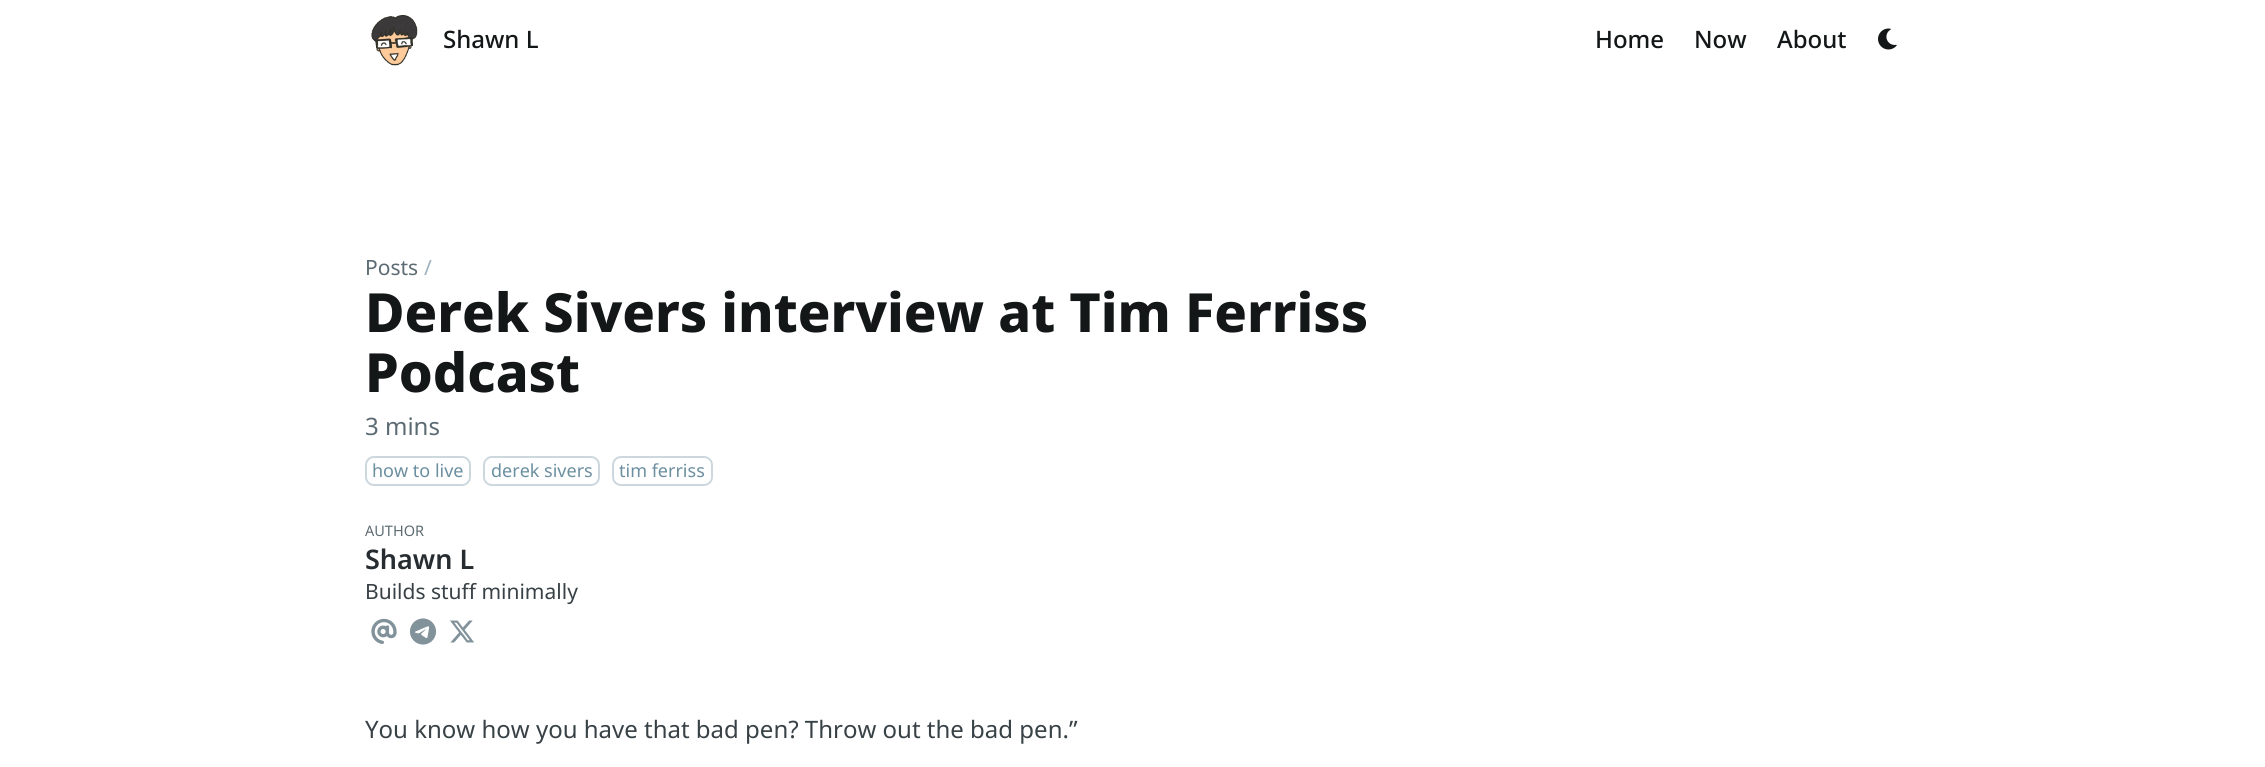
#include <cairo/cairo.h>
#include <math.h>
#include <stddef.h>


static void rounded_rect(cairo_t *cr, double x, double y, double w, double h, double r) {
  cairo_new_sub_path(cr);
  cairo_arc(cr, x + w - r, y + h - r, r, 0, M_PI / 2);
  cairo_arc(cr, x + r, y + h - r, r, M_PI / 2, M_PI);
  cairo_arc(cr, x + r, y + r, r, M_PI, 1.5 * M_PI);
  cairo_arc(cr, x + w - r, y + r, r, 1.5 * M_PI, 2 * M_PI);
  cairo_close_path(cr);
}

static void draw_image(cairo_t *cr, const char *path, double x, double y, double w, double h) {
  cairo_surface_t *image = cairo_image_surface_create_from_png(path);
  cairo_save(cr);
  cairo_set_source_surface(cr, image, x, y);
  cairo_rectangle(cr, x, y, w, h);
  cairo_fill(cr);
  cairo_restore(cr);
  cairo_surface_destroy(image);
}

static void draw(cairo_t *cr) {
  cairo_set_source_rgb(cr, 1, 1, 1);
  cairo_paint(cr);
  draw_image(cr, "images/1.png", 371, 15, 47, 51);
  draw_image(cr, "images/2.png", 1878, 28, 19, 22);
  rounded_rect(cr, 366, 457, 104, 28, 8);
  cairo_set_source_rgb(cr, 204 / 255.0, 216 / 255.0, 222 / 255.0);
  cairo_stroke(cr);
  rounded_rect(cr, 484, 457, 115, 28, 8);
  cairo_stroke(cr);
  rounded_rect(cr, 613, 457, 99, 28, 8);
  cairo_stroke(cr);
  draw_image(cr, "images/3.png", 371, 618, 26, 26);
  draw_image(cr, "images/4.png", 410, 618, 27, 27);
  draw_image(cr, "images/5.png", 450, 620, 24, 23);
  cairo_select_font_face(cr, "Noto Sans Medium", CAIRO_FONT_SLANT_NORMAL, CAIRO_FONT_WEIGHT_NORMAL);
  cairo_set_font_size(cr, 24);
  cairo_set_source_rgb(cr, 19 / 255.0, 23 / 255.0, 24 / 255.0);
  cairo_move_to(cr, 443, 48);
  cairo_show_text(cr, "Shawn L");
  cairo_move_to(cr, 1595, 48);
  cairo_show_text(cr, "Home");
  cairo_move_to(cr, 1694, 48);
  cairo_show_text(cr, "Now");
  cairo_move_to(cr, 1777, 48);
  cairo_show_text(cr, "About");
  cairo_select_font_face(cr, "Noto Sans", CAIRO_FONT_SLANT_NORMAL, CAIRO_FONT_WEIGHT_NORMAL);
  cairo_set_font_size(cr, 21);
  cairo_set_source_rgb(cr, 92 / 255.0, 107 / 255.0, 115 / 255.0);
  cairo_move_to(cr, 365, 275);
  cairo_show_text(cr, "Posts");
  cairo_set_source_rgb(cr, 157 / 255.0, 180 / 255.0, 192 / 255.0);
  cairo_move_to(cr, 424, 275);
  cairo_show_text(cr, "/");
  cairo_select_font_face(cr, "Noto Sans ExtraBold", CAIRO_FONT_SLANT_NORMAL, CAIRO_FONT_WEIGHT_NORMAL);
  cairo_set_font_size(cr, 54);
  cairo_set_source_rgb(cr, 19 / 255.0, 23 / 255.0, 24 / 255.0);
  cairo_move_to(cr, 365, 332);
  cairo_show_text(cr, "Derek Sivers interview at Tim Ferriss");
  cairo_move_to(cr, 365, 392);
  cairo_show_text(cr, "Podcast");
  cairo_select_font_face(cr, "Noto Sans", CAIRO_FONT_SLANT_NORMAL, CAIRO_FONT_WEIGHT_NORMAL);
  cairo_set_font_size(cr, 24);
  cairo_set_source_rgb(cr, 92 / 255.0, 107 / 255.0, 115 / 255.0);
  cairo_move_to(cr, 365, 435);
  cairo_show_text(cr, "3 mins");
  cairo_set_font_size(cr, 18);
  cairo_set_source_rgb(cr, 107 / 255.0, 142 / 255.0, 160 / 255.0);
  cairo_move_to(cr, 372, 477);
  cairo_show_text(cr, "how to live");
  cairo_move_to(cr, 491, 477);
  cairo_show_text(cr, "derek sivers");
  cairo_move_to(cr, 619, 477);
  cairo_show_text(cr, "tim ferriss");
  cairo_set_font_size(cr, 14.5);
  cairo_set_source_rgb(cr, 92 / 255.0, 107 / 255.0, 115 / 255.0);
  cairo_move_to(cr, 365, 536);
  cairo_show_text(cr, "AUTHOR");
  cairo_select_font_face(cr, "Noto Sans SemiBold", CAIRO_FONT_SLANT_NORMAL, CAIRO_FONT_WEIGHT_NORMAL);
  cairo_set_font_size(cr, 27);
  cairo_set_source_rgb(cr, 38 / 255.0, 44 / 255.0, 47 / 255.0);
  cairo_move_to(cr, 365, 569);
  cairo_show_text(cr, "Shawn L");
  cairo_select_font_face(cr, "Noto Sans", CAIRO_FONT_SLANT_NORMAL, CAIRO_FONT_WEIGHT_NORMAL);
  cairo_set_font_size(cr, 21);
  cairo_set_source_rgb(cr, 56 / 255.0, 65 / 255.0, 70 / 255.0);
  cairo_move_to(cr, 365, 599);
  cairo_show_text(cr, "Builds stuff minimally");
  cairo_set_font_size(cr, 24);
  cairo_move_to(cr, 365, 738);
  cairo_show_text(cr, "You know how you have that bad pen? Throw out the bad pen.”");
}

int main(void) {
  cairo_surface_t *surface = cairo_image_surface_create(CAIRO_FORMAT_RGB24, 2265, 767);
  cairo_t *cr = cairo_create(surface);
  cairo_font_options_t *options = cairo_font_options_create();
  cairo_font_options_set_hint_metrics(options, CAIRO_HINT_METRICS_OFF);
  cairo_font_options_set_hint_style(options, CAIRO_HINT_STYLE_NONE);
  cairo_set_font_options(cr, options);
  cairo_set_miter_limit(cr, 4);
  draw(cr);
  cairo_surface_write_to_png(surface, "out.png");
  cairo_font_options_destroy(options);
  cairo_destroy(cr);
  cairo_surface_destroy(surface);
  return 0;
}
